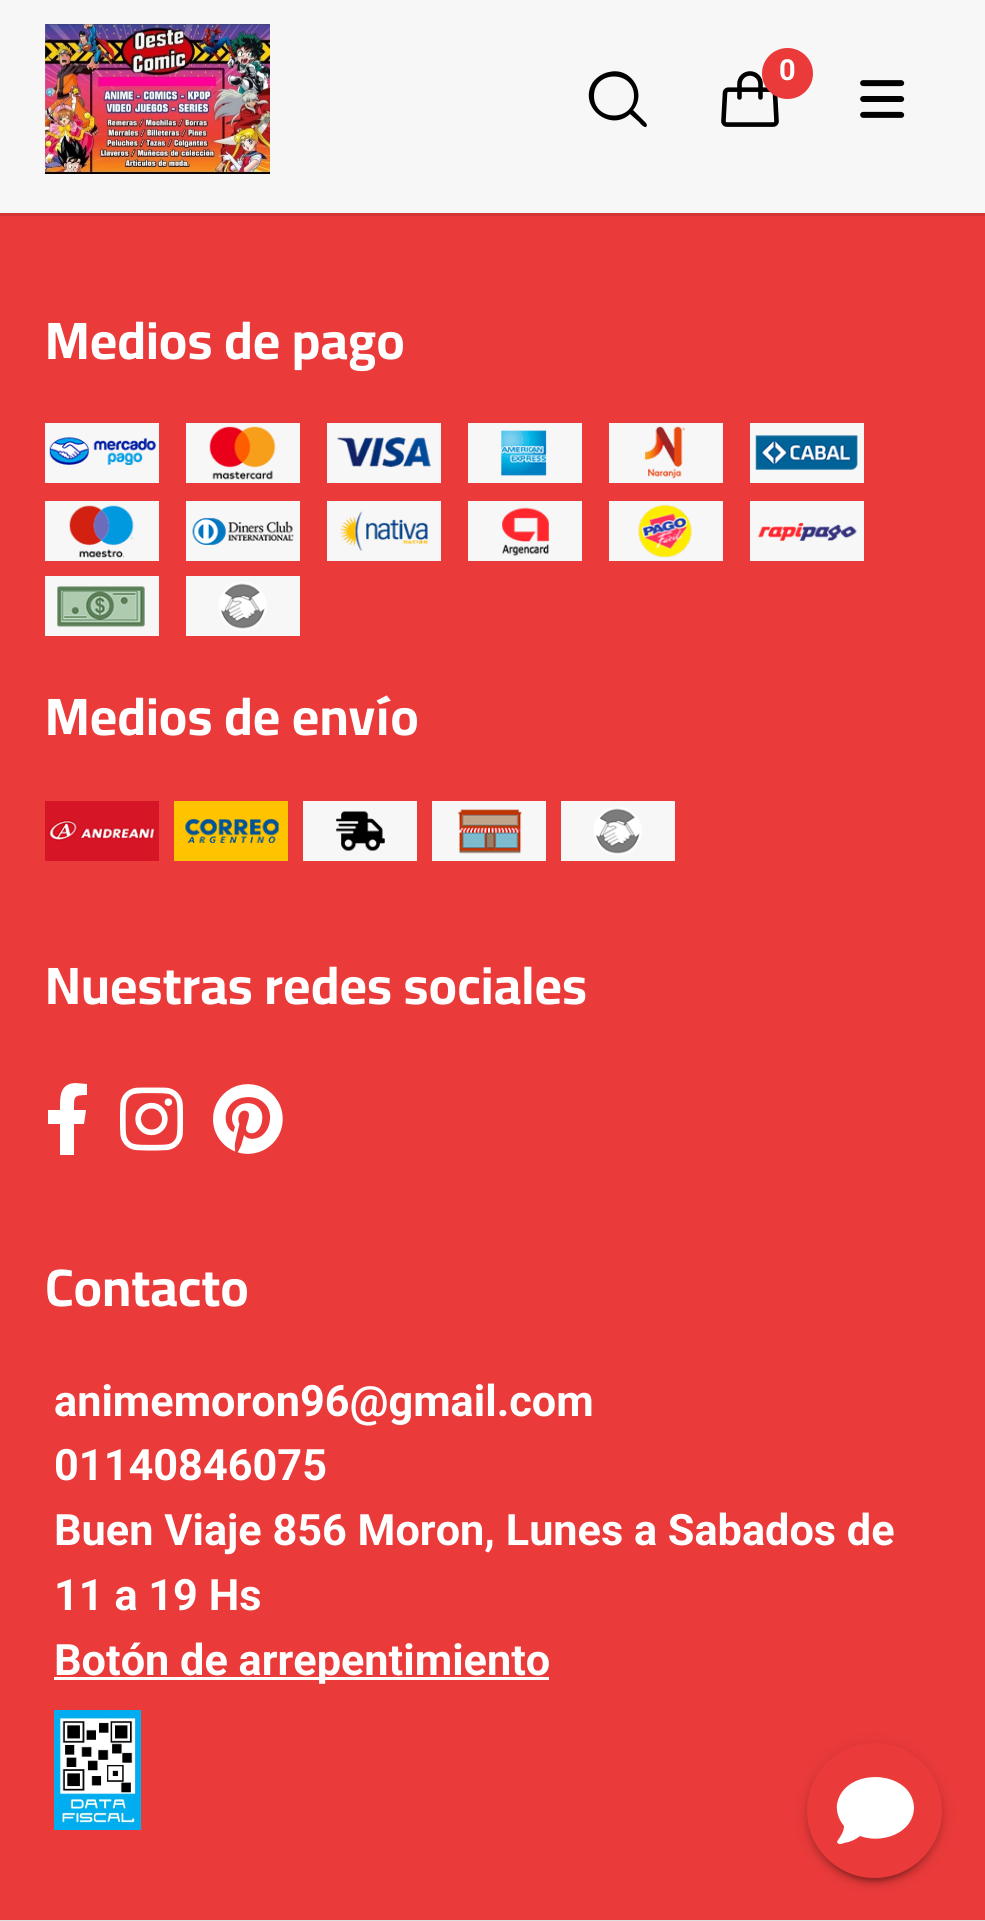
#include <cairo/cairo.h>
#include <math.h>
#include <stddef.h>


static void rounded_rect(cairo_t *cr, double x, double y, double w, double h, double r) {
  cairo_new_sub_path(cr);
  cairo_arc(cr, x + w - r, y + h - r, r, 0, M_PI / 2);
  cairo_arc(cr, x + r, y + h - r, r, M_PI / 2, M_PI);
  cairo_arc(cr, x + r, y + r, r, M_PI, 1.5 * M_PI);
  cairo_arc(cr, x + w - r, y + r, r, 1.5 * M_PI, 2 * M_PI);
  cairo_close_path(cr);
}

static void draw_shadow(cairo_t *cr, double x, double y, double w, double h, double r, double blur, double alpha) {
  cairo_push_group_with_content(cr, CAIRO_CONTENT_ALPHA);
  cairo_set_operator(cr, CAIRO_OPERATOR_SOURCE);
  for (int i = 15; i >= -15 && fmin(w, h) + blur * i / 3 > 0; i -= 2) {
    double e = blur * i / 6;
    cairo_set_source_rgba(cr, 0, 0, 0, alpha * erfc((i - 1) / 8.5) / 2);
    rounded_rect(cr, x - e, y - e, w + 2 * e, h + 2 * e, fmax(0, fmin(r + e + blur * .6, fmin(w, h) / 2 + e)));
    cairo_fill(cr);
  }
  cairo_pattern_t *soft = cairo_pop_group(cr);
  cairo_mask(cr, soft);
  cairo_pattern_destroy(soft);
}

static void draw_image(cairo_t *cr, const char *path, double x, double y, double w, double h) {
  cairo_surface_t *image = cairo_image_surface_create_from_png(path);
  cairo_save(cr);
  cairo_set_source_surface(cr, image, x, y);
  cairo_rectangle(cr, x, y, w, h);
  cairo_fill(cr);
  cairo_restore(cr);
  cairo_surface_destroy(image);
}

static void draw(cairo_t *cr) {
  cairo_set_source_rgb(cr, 247 / 255.0, 247 / 255.0, 247 / 255.0);
  cairo_paint(cr);
  draw_image(cr, "images/1.png", 45, 24, 225, 150);
  cairo_set_source_rgb(cr, 0, 0, 0);
  cairo_new_path(cr);
  cairo_move_to(cr, 646, 123);
  cairo_line_to(cr, 633, 110);
  cairo_curve_to(cr, 641, 101, 640, 87, 631, 78);
  cairo_curve_to(cr, 625, 72, 617, 70, 609, 72);
  cairo_curve_to(cr, 603, 73, 597, 77, 593, 82);
  cairo_curve_to(cr, 577, 106, 610, 133, 630, 114);
  cairo_line_to(cr, 639, 122);
  cairo_curve_to(cr, 639, 122, 646, 131, 647, 125);
  cairo_close_path(cr);
  cairo_move_to(cr, 634, 96);
  cairo_curve_to(cr, 634, 122, 594, 122, 594, 96);
  cairo_curve_to(cr, 594, 70, 634, 70, 634, 96);
  cairo_close_path(cr);
  cairo_fill(cr);
  draw_image(cr, "images/2.png", 721, 71, 58, 56);
  cairo_set_source_rgb(cr, 234 / 255.0, 58 / 255.0, 58 / 255.0);
  cairo_arc(cr, 787.5, 73.5, 25.5, 0, 2 * M_PI);
  cairo_fill(cr);
  draw_image(cr, "images/3.png", 860, 80, 45, 38);
  cairo_rectangle(cr, 0, 216, 985, 1704);
  cairo_fill(cr);
  cairo_set_source_rgb(cr, 211 / 255.0, 52 / 255.0, 52 / 255.0);
  cairo_rectangle(cr, 0, 213, 985, 3);
  cairo_fill(cr);
  draw_image(cr, "images/4.png", 45, 423, 114, 60);
  draw_image(cr, "images/5.png", 186, 423, 114, 60);
  draw_image(cr, "images/6.png", 327, 423, 114, 60);
  draw_image(cr, "images/7.png", 468, 423, 114, 60);
  draw_image(cr, "images/8.png", 609, 423, 114, 60);
  draw_image(cr, "images/9.png", 750, 423, 114, 60);
  draw_image(cr, "images/10.png", 45, 501, 114, 60);
  draw_image(cr, "images/11.png", 186, 501, 114, 60);
  draw_image(cr, "images/12.png", 327, 501, 114, 60);
  draw_image(cr, "images/13.png", 468, 501, 114, 60);
  draw_image(cr, "images/14.png", 609, 501, 114, 60);
  draw_image(cr, "images/15.png", 750, 501, 114, 60);
  draw_image(cr, "images/16.png", 45, 576, 114, 60);
  draw_image(cr, "images/17.png", 186, 576, 114, 60);
  draw_image(cr, "images/18.png", 45, 801, 114, 60);
  draw_image(cr, "images/19.png", 174, 801, 114, 60);
  draw_image(cr, "images/20.png", 303, 801, 114, 60);
  draw_image(cr, "images/21.png", 432, 801, 114, 60);
  draw_image(cr, "images/22.png", 561, 801, 114, 60);
  cairo_set_source_rgb(cr, 1, 1, 1);
  cairo_new_path(cr);
  cairo_move_to(cr, 84, 1124);
  cairo_line_to(cr, 86, 1110);
  cairo_line_to(cr, 74, 1110);
  cairo_curve_to(cr, 74, 1097, 73, 1095, 87, 1095);
  cairo_line_to(cr, 87, 1084);
  cairo_line_to(cr, 75, 1083);
  cairo_curve_to(cr, 59, 1084, 60, 1098, 60, 1110);
  cairo_line_to(cr, 48, 1110);
  cairo_line_to(cr, 48, 1124);
  cairo_line_to(cr, 60, 1124);
  cairo_line_to(cr, 60, 1155);
  cairo_line_to(cr, 74, 1155);
  cairo_line_to(cr, 74, 1124);
  cairo_close_path(cr);
  cairo_fill(cr);
  draw_image(cr, "images/23.png", 120, 1087, 63, 64);
  draw_image(cr, "images/24.png", 213, 1084, 70, 70);
  cairo_rectangle(cr, 54, 1677, 495, 3);
  cairo_fill(cr);
  draw_image(cr, "images/25.png", 54, 1710, 87, 120);
  cairo_set_source_rgb(cr, 222 / 255.0, 222 / 255.0, 222 / 255.0);
  cairo_rectangle(cr, 0, 1920, 985, 1);
  cairo_fill(cr);
  cairo_set_source_rgb(cr, 0, 0, 0);
  draw_shadow(cr, 813, 1758, 123, 123, 61.5, 1.5, 0.2);
  draw_shadow(cr, 807, 1746, 135, 135, 67.5, 7.5, 0.12);
  draw_shadow(cr, 807, 1749, 135, 135, 67.5, 3, 0.14);
  cairo_set_source_rgb(cr, 234 / 255.0, 58 / 255.0, 58 / 255.0);
  cairo_arc(cr, 874.5, 1810.5, 67.5, 0, 2 * M_PI);
  cairo_fill(cr);
  cairo_set_source_rgb(cr, 1, 1, 1);
  cairo_new_path(cr);
  cairo_move_to(cr, 914, 1808);
  cairo_curve_to(cr, 913, 1834, 881, 1844, 860, 1836);
  cairo_curve_to(cr, 855, 1840, 850, 1842, 844, 1843);
  cairo_curve_to(cr, 842, 1844, 838, 1845, 837, 1842);
  cairo_line_to(cr, 838, 1840);
  cairo_curve_to(cr, 841, 1836, 844, 1831, 844, 1826);
  cairo_curve_to(cr, 839, 1820, 836, 1812, 837, 1804);
  cairo_curve_to(cr, 844, 1766, 913, 1769, 914, 1808);
  cairo_close_path(cr);
  cairo_fill(cr);
  cairo_select_font_face(cr, "Roboto", CAIRO_FONT_SLANT_NORMAL, CAIRO_FONT_WEIGHT_BOLD);
  cairo_set_font_size(cr, 29);
  cairo_move_to(cr, 779, 80);
  cairo_show_text(cr, "0");
  cairo_select_font_face(cr, "Cairo", CAIRO_FONT_SLANT_NORMAL, CAIRO_FONT_WEIGHT_BOLD);
  cairo_set_font_size(cr, 52.75);
  cairo_move_to(cr, 45, 359);
  cairo_show_text(cr, "Medios de pago");
  cairo_move_to(cr, 45, 735);
  cairo_show_text(cr, "Medios de envío");
  cairo_move_to(cr, 45, 1004);
  cairo_show_text(cr, "Nuestras redes sociales");
  cairo_move_to(cr, 45, 1306);
  cairo_show_text(cr, "Contacto");
  cairo_select_font_face(cr, "Roboto", CAIRO_FONT_SLANT_NORMAL, CAIRO_FONT_WEIGHT_BOLD);
  cairo_set_font_size(cr, 43.25);
  cairo_move_to(cr, 54, 1416);
  cairo_show_text(cr, "animemoron96@gmail.com");
  cairo_move_to(cr, 54, 1480);
  cairo_show_text(cr, "01140846075");
  cairo_move_to(cr, 54, 1545);
  cairo_show_text(cr, "Buen Viaje 856 Moron, Lunes a Sabados de");
  cairo_move_to(cr, 54, 1610);
  cairo_show_text(cr, "11 a 19 Hs");
  cairo_move_to(cr, 54, 1675);
  cairo_show_text(cr, "Botón de arrepentimiento");
}

int main(void) {
  cairo_surface_t *surface = cairo_image_surface_create(CAIRO_FORMAT_RGB24, 985, 1921);
  cairo_t *cr = cairo_create(surface);
  cairo_font_options_t *options = cairo_font_options_create();
  cairo_font_options_set_hint_metrics(options, CAIRO_HINT_METRICS_OFF);
  cairo_font_options_set_hint_style(options, CAIRO_HINT_STYLE_NONE);
  cairo_set_font_options(cr, options);
  cairo_set_miter_limit(cr, 4);
  draw(cr);
  cairo_surface_write_to_png(surface, "out.png");
  cairo_font_options_destroy(options);
  cairo_destroy(cr);
  cairo_surface_destroy(surface);
  return 0;
}
